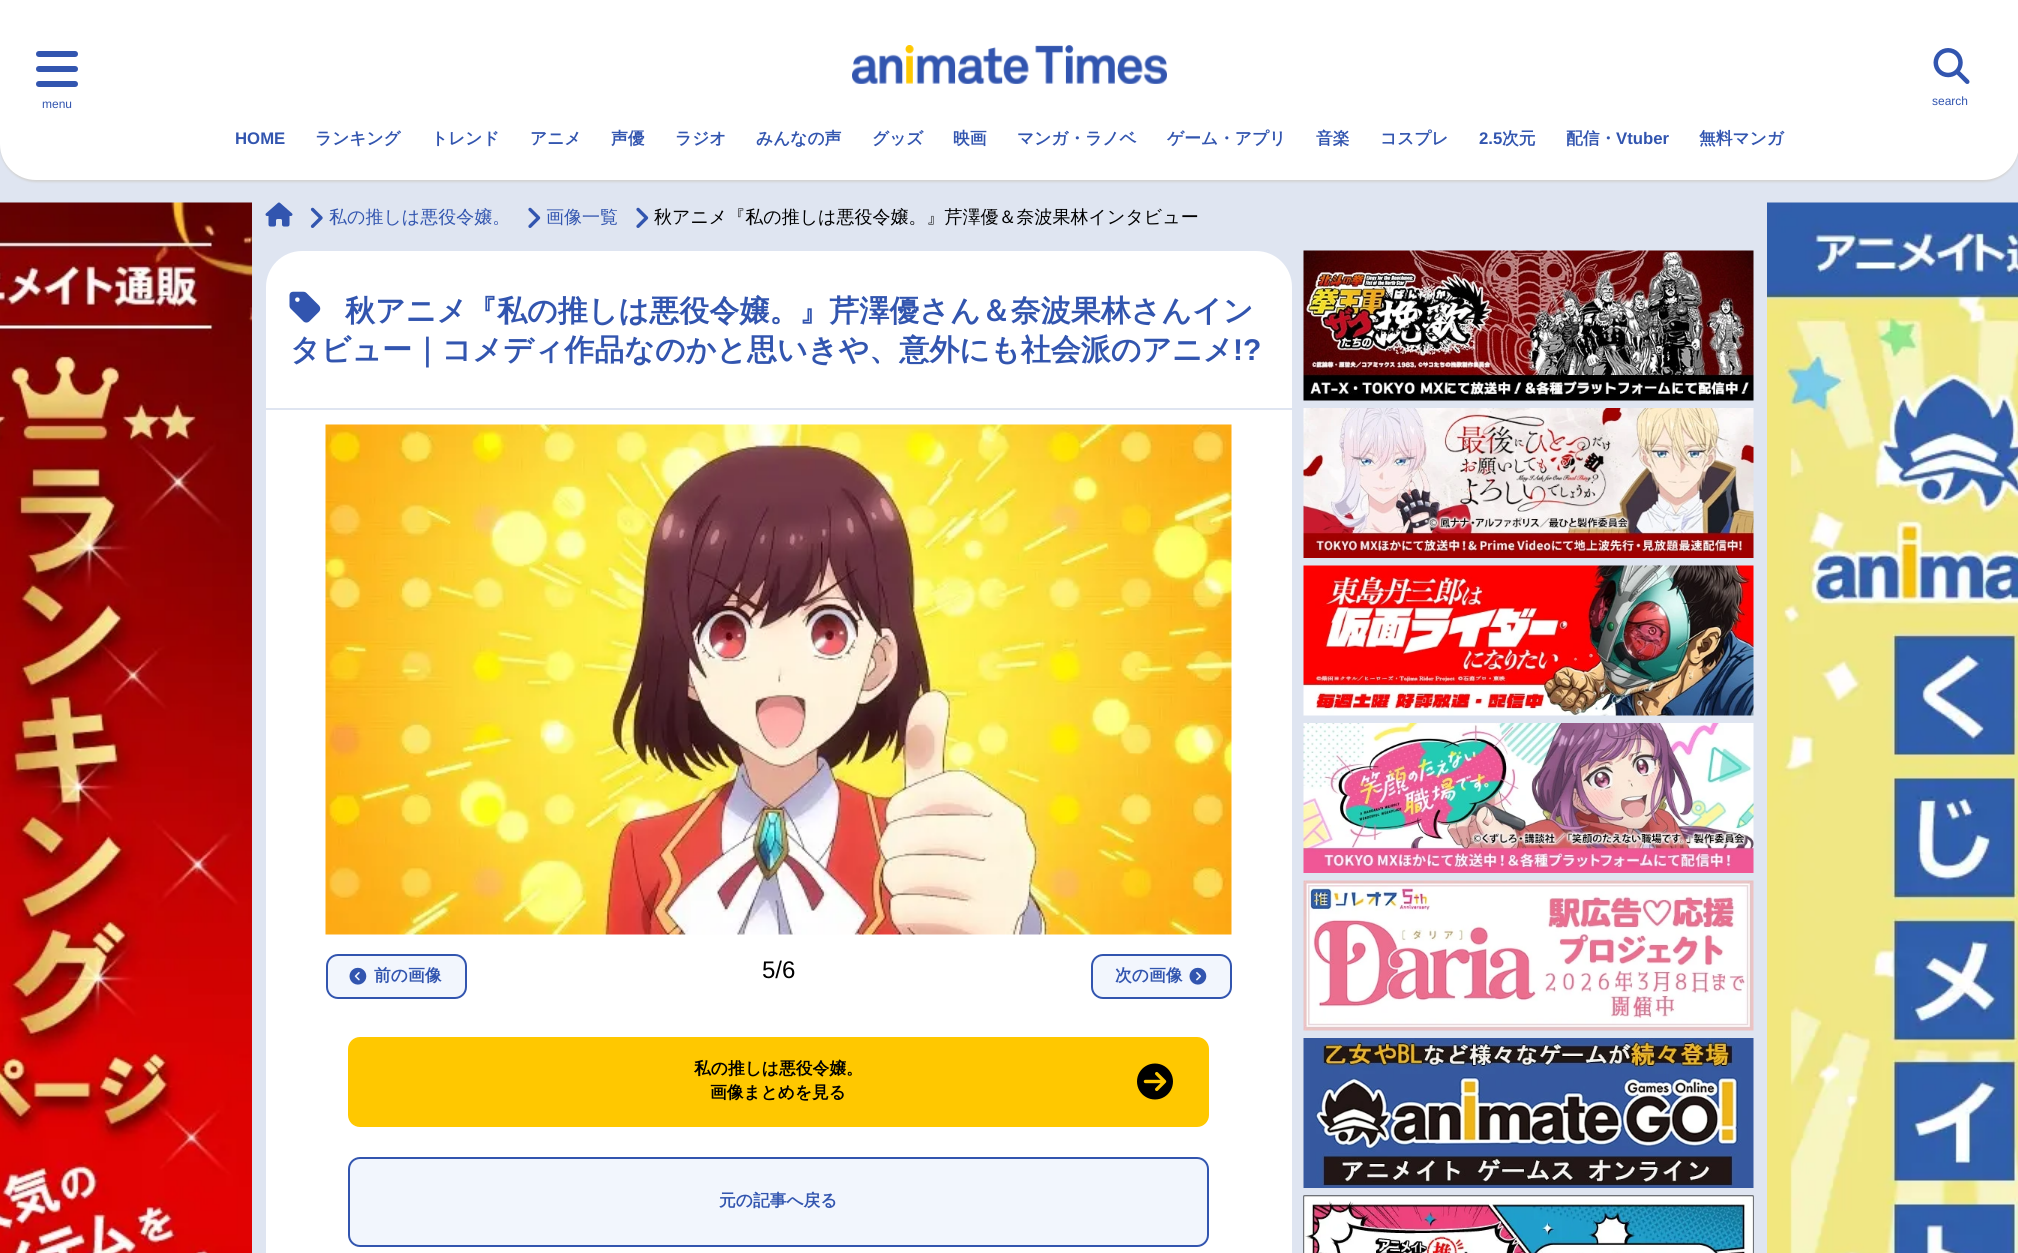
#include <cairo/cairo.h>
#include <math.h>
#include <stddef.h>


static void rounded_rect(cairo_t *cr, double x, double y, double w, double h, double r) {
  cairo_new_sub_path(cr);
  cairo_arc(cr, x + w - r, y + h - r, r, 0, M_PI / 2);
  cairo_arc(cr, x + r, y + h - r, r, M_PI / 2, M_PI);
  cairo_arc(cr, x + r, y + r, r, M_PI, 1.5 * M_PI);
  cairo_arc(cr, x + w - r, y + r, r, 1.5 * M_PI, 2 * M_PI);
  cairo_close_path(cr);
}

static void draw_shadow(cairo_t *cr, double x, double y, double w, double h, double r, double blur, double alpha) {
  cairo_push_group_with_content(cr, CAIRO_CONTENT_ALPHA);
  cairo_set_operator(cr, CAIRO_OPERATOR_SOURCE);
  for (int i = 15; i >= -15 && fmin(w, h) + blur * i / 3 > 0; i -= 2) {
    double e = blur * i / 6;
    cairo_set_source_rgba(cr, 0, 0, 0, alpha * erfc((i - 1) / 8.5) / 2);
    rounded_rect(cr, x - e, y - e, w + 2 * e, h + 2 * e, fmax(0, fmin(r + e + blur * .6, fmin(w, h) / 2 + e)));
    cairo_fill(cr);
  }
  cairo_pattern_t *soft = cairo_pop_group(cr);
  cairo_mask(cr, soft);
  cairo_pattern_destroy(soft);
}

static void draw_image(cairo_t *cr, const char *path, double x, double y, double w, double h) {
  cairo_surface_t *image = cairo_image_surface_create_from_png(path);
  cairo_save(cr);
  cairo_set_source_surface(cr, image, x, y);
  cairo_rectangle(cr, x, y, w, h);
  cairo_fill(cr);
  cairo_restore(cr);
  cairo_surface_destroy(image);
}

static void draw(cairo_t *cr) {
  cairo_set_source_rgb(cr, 223 / 255.0, 229 / 255.0, 241 / 255.0);
  cairo_paint(cr);
  cairo_set_source_rgb(cr, 211 / 255.0, 211 / 255.0, 211 / 255.0);
  draw_shadow(cr, 0, 2, 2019, 180, 36, 1, 1);
  cairo_set_source_rgb(cr, 1, 1, 1);
  cairo_new_path(cr);
  cairo_move_to(cr, 0, 0);
  cairo_line_to(cr, 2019, 0);
  cairo_line_to(cr, 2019, 144);
  cairo_curve_to(cr, 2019, 164, 2003, 180, 1983, 180);
  cairo_line_to(cr, 36, 180);
  cairo_curve_to(cr, 16, 180, 0, 164, 0, 144);
  cairo_close_path(cr);
  cairo_fill(cr);
  draw_image(cr, "images/1.png", 852, 45, 315, 39);
  draw_image(cr, "images/2.png", 36, 51, 42, 36);
  draw_image(cr, "images/3.png", 1933, 48, 37, 36);
  draw_image(cr, "images/4.png", 0, 202, 252, 1051);
  draw_image(cr, "images/5.png", 1767, 202, 251, 1051);
  draw_image(cr, "images/6.png", 265, 202, 28, 25);
  draw_image(cr, "images/7.png", 310, 207, 13, 21);
  draw_image(cr, "images/8.png", 528, 207, 13, 21);
  draw_image(cr, "images/8.png", 636, 207, 13, 21);
  rounded_rect(cr, 266, 251, 1026, 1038, 36);
  cairo_fill(cr);
  cairo_set_source_rgb(cr, 223 / 255.0, 229 / 255.0, 241 / 255.0);
  cairo_rectangle(cr, 266, 408, 1026, 2);
  cairo_fill(cr);
  draw_image(cr, "images/9.png", 289, 291, 32, 32);
  draw_image(cr, "images/10.png", 325, 424, 907, 511);
  cairo_set_source_rgb(cr, 242 / 255.0, 246 / 255.0, 253 / 255.0);
  rounded_rect(cr, 327, 955, 139, 43, 11);
  cairo_fill_preserve(cr);
  cairo_set_source_rgb(cr, 50 / 255.0, 85 / 255.0, 175 / 255.0);
  cairo_stroke(cr);
  draw_image(cr, "images/11.png", 349, 967, 18, 18);
  cairo_set_source_rgb(cr, 242 / 255.0, 246 / 255.0, 253 / 255.0);
  rounded_rect(cr, 1092, 955, 139, 43, 11);
  cairo_fill_preserve(cr);
  cairo_set_source_rgb(cr, 50 / 255.0, 85 / 255.0, 175 / 255.0);
  cairo_stroke(cr);
  draw_image(cr, "images/12.png", 1189, 967, 18, 18);
  cairo_set_source_rgb(cr, 1, 200 / 255.0, 0);
  rounded_rect(cr, 348, 1037, 861, 90, 12);
  cairo_fill(cr);
  draw_image(cr, "images/13.png", 1137, 1063, 36, 37);
  cairo_set_source_rgb(cr, 242 / 255.0, 246 / 255.0, 253 / 255.0);
  rounded_rect(cr, 349, 1158, 859, 88, 11);
  cairo_fill_preserve(cr);
  cairo_set_source_rgb(cr, 50 / 255.0, 85 / 255.0, 175 / 255.0);
  cairo_stroke(cr);
  draw_image(cr, "images/14.png", 1303, 250, 451, 151);
  draw_image(cr, "images/15.png", 1303, 408, 451, 150);
  draw_image(cr, "images/16.png", 1303, 565, 451, 151);
  draw_image(cr, "images/17.png", 1303, 723, 451, 150);
  draw_image(cr, "images/18.png", 1303, 880, 451, 151);
  draw_image(cr, "images/19.png", 1303, 1038, 451, 150);
  draw_image(cr, "images/20.png", 1303, 1195, 451, 58);
  cairo_select_font_face(cr, "Liberation Sans", CAIRO_FONT_SLANT_NORMAL, CAIRO_FONT_WEIGHT_NORMAL);
  cairo_set_font_size(cr, 12);
  cairo_move_to(cr, 42, 108);
  cairo_show_text(cr, "menu");
  cairo_move_to(cr, 1932, 105);
  cairo_show_text(cr, "search");
  cairo_select_font_face(cr, "Liberation Sans", CAIRO_FONT_SLANT_NORMAL, CAIRO_FONT_WEIGHT_BOLD);
  cairo_set_font_size(cr, 16.75);
  cairo_move_to(cr, 235, 144);
  cairo_show_text(cr, "HOME");
  cairo_select_font_face(cr, "WenQuanYi Zen Hei", CAIRO_FONT_SLANT_NORMAL, CAIRO_FONT_WEIGHT_BOLD);
  cairo_move_to(cr, 315, 144);
  cairo_show_text(cr, "ランキング");
  cairo_move_to(cr, 431, 144);
  cairo_show_text(cr, "トレンド");
  cairo_move_to(cr, 530, 144);
  cairo_show_text(cr, "アニメ");
  cairo_move_to(cr, 611, 144);
  cairo_show_text(cr, "声優");
  cairo_move_to(cr, 675, 144);
  cairo_show_text(cr, "ラジオ");
  cairo_move_to(cr, 756, 144);
  cairo_show_text(cr, "みんなの声");
  cairo_move_to(cr, 872, 144);
  cairo_show_text(cr, "グッズ");
  cairo_move_to(cr, 953, 144);
  cairo_show_text(cr, "映画");
  cairo_move_to(cr, 1017, 144);
  cairo_show_text(cr, "マンガ・ラノベ");
  cairo_move_to(cr, 1167, 144);
  cairo_show_text(cr, "ゲーム・アプリ");
  cairo_move_to(cr, 1316, 144);
  cairo_show_text(cr, "音楽");
  cairo_move_to(cr, 1380, 144);
  cairo_show_text(cr, "コスプレ");
  cairo_select_font_face(cr, "Liberation Sans", CAIRO_FONT_SLANT_NORMAL, CAIRO_FONT_WEIGHT_BOLD);
  cairo_move_to(cr, 1479, 144);
  cairo_show_text(cr, "2.5");
  cairo_select_font_face(cr, "WenQuanYi Zen Hei", CAIRO_FONT_SLANT_NORMAL, CAIRO_FONT_WEIGHT_BOLD);
  cairo_move_to(cr, 1502, 144);
  cairo_show_text(cr, "次元");
  cairo_move_to(cr, 1566, 144);
  cairo_show_text(cr, "配信・");
  cairo_select_font_face(cr, "Liberation Sans", CAIRO_FONT_SLANT_NORMAL, CAIRO_FONT_WEIGHT_BOLD);
  cairo_move_to(cr, 1616, 144);
  cairo_show_text(cr, "Vtuber");
  cairo_select_font_face(cr, "WenQuanYi Zen Hei", CAIRO_FONT_SLANT_NORMAL, CAIRO_FONT_WEIGHT_BOLD);
  cairo_move_to(cr, 1699, 144);
  cairo_show_text(cr, "無料マンガ");
  cairo_select_font_face(cr, "WenQuanYi Zen Hei Medium", CAIRO_FONT_SLANT_NORMAL, CAIRO_FONT_WEIGHT_NORMAL);
  cairo_set_font_size(cr, 18);
  cairo_move_to(cr, 329, 223);
  cairo_show_text(cr, "私の推しは悪役令嬢。");
  cairo_move_to(cr, 546, 223);
  cairo_show_text(cr, "画像一覧");
  cairo_set_source_rgb(cr, 0, 0, 0);
  cairo_move_to(cr, 654, 223);
  cairo_show_text(cr, "秋アニメ『私の推しは悪役令嬢。』芹澤優＆奈波果林インタビュー");
  cairo_select_font_face(cr, "WenQuanYi Zen Hei", CAIRO_FONT_SLANT_NORMAL, CAIRO_FONT_WEIGHT_BOLD);
  cairo_set_font_size(cr, 30);
  cairo_set_source_rgb(cr, 50 / 255.0, 85 / 255.0, 175 / 255.0);
  cairo_move_to(cr, 345, 321);
  cairo_show_text(cr, "秋アニメ『私の推しは悪役令嬢。』芹澤優さん＆奈波果林さんイン");
  cairo_move_to(cr, 290, 360);
  cairo_show_text(cr, "タビュー｜コメディ作品なのかと思いきや、意外にも社会派のアニメ");
  cairo_select_font_face(cr, "Liberation Sans", CAIRO_FONT_SLANT_NORMAL, CAIRO_FONT_WEIGHT_BOLD);
  cairo_move_to(cr, 1233, 360);
  cairo_show_text(cr, "!?");
  cairo_select_font_face(cr, "Liberation Sans", CAIRO_FONT_SLANT_NORMAL, CAIRO_FONT_WEIGHT_NORMAL);
  cairo_set_font_size(cr, 24);
  cairo_set_source_rgb(cr, 0, 0, 0);
  cairo_move_to(cr, 762, 978);
  cairo_show_text(cr, "5/6");
  cairo_select_font_face(cr, "WenQuanYi Zen Hei", CAIRO_FONT_SLANT_NORMAL, CAIRO_FONT_WEIGHT_BOLD);
  cairo_set_font_size(cr, 16.75);
  cairo_set_source_rgb(cr, 50 / 255.0, 85 / 255.0, 175 / 255.0);
  cairo_move_to(cr, 374, 981);
  cairo_show_text(cr, "前の画像");
  cairo_move_to(cr, 1115, 981);
  cairo_show_text(cr, "次の画像");
  cairo_set_source_rgb(cr, 0, 0, 0);
  cairo_move_to(cr, 694, 1074);
  cairo_show_text(cr, "私の推しは悪役令嬢。");
  cairo_move_to(cr, 710, 1098);
  cairo_show_text(cr, "画像まとめを見る");
  cairo_set_source_rgb(cr, 50 / 255.0, 85 / 255.0, 175 / 255.0);
  cairo_move_to(cr, 719, 1206);
  cairo_show_text(cr, "元の記事へ戻る");
}

int main(void) {
  cairo_surface_t *surface = cairo_image_surface_create(CAIRO_FORMAT_RGB24, 2018, 1253);
  cairo_t *cr = cairo_create(surface);
  cairo_font_options_t *options = cairo_font_options_create();
  cairo_font_options_set_hint_metrics(options, CAIRO_HINT_METRICS_OFF);
  cairo_font_options_set_hint_style(options, CAIRO_HINT_STYLE_NONE);
  cairo_set_font_options(cr, options);
  cairo_set_miter_limit(cr, 4);
  draw(cr);
  cairo_surface_write_to_png(surface, "out.png");
  cairo_font_options_destroy(options);
  cairo_destroy(cr);
  cairo_surface_destroy(surface);
  return 0;
}
